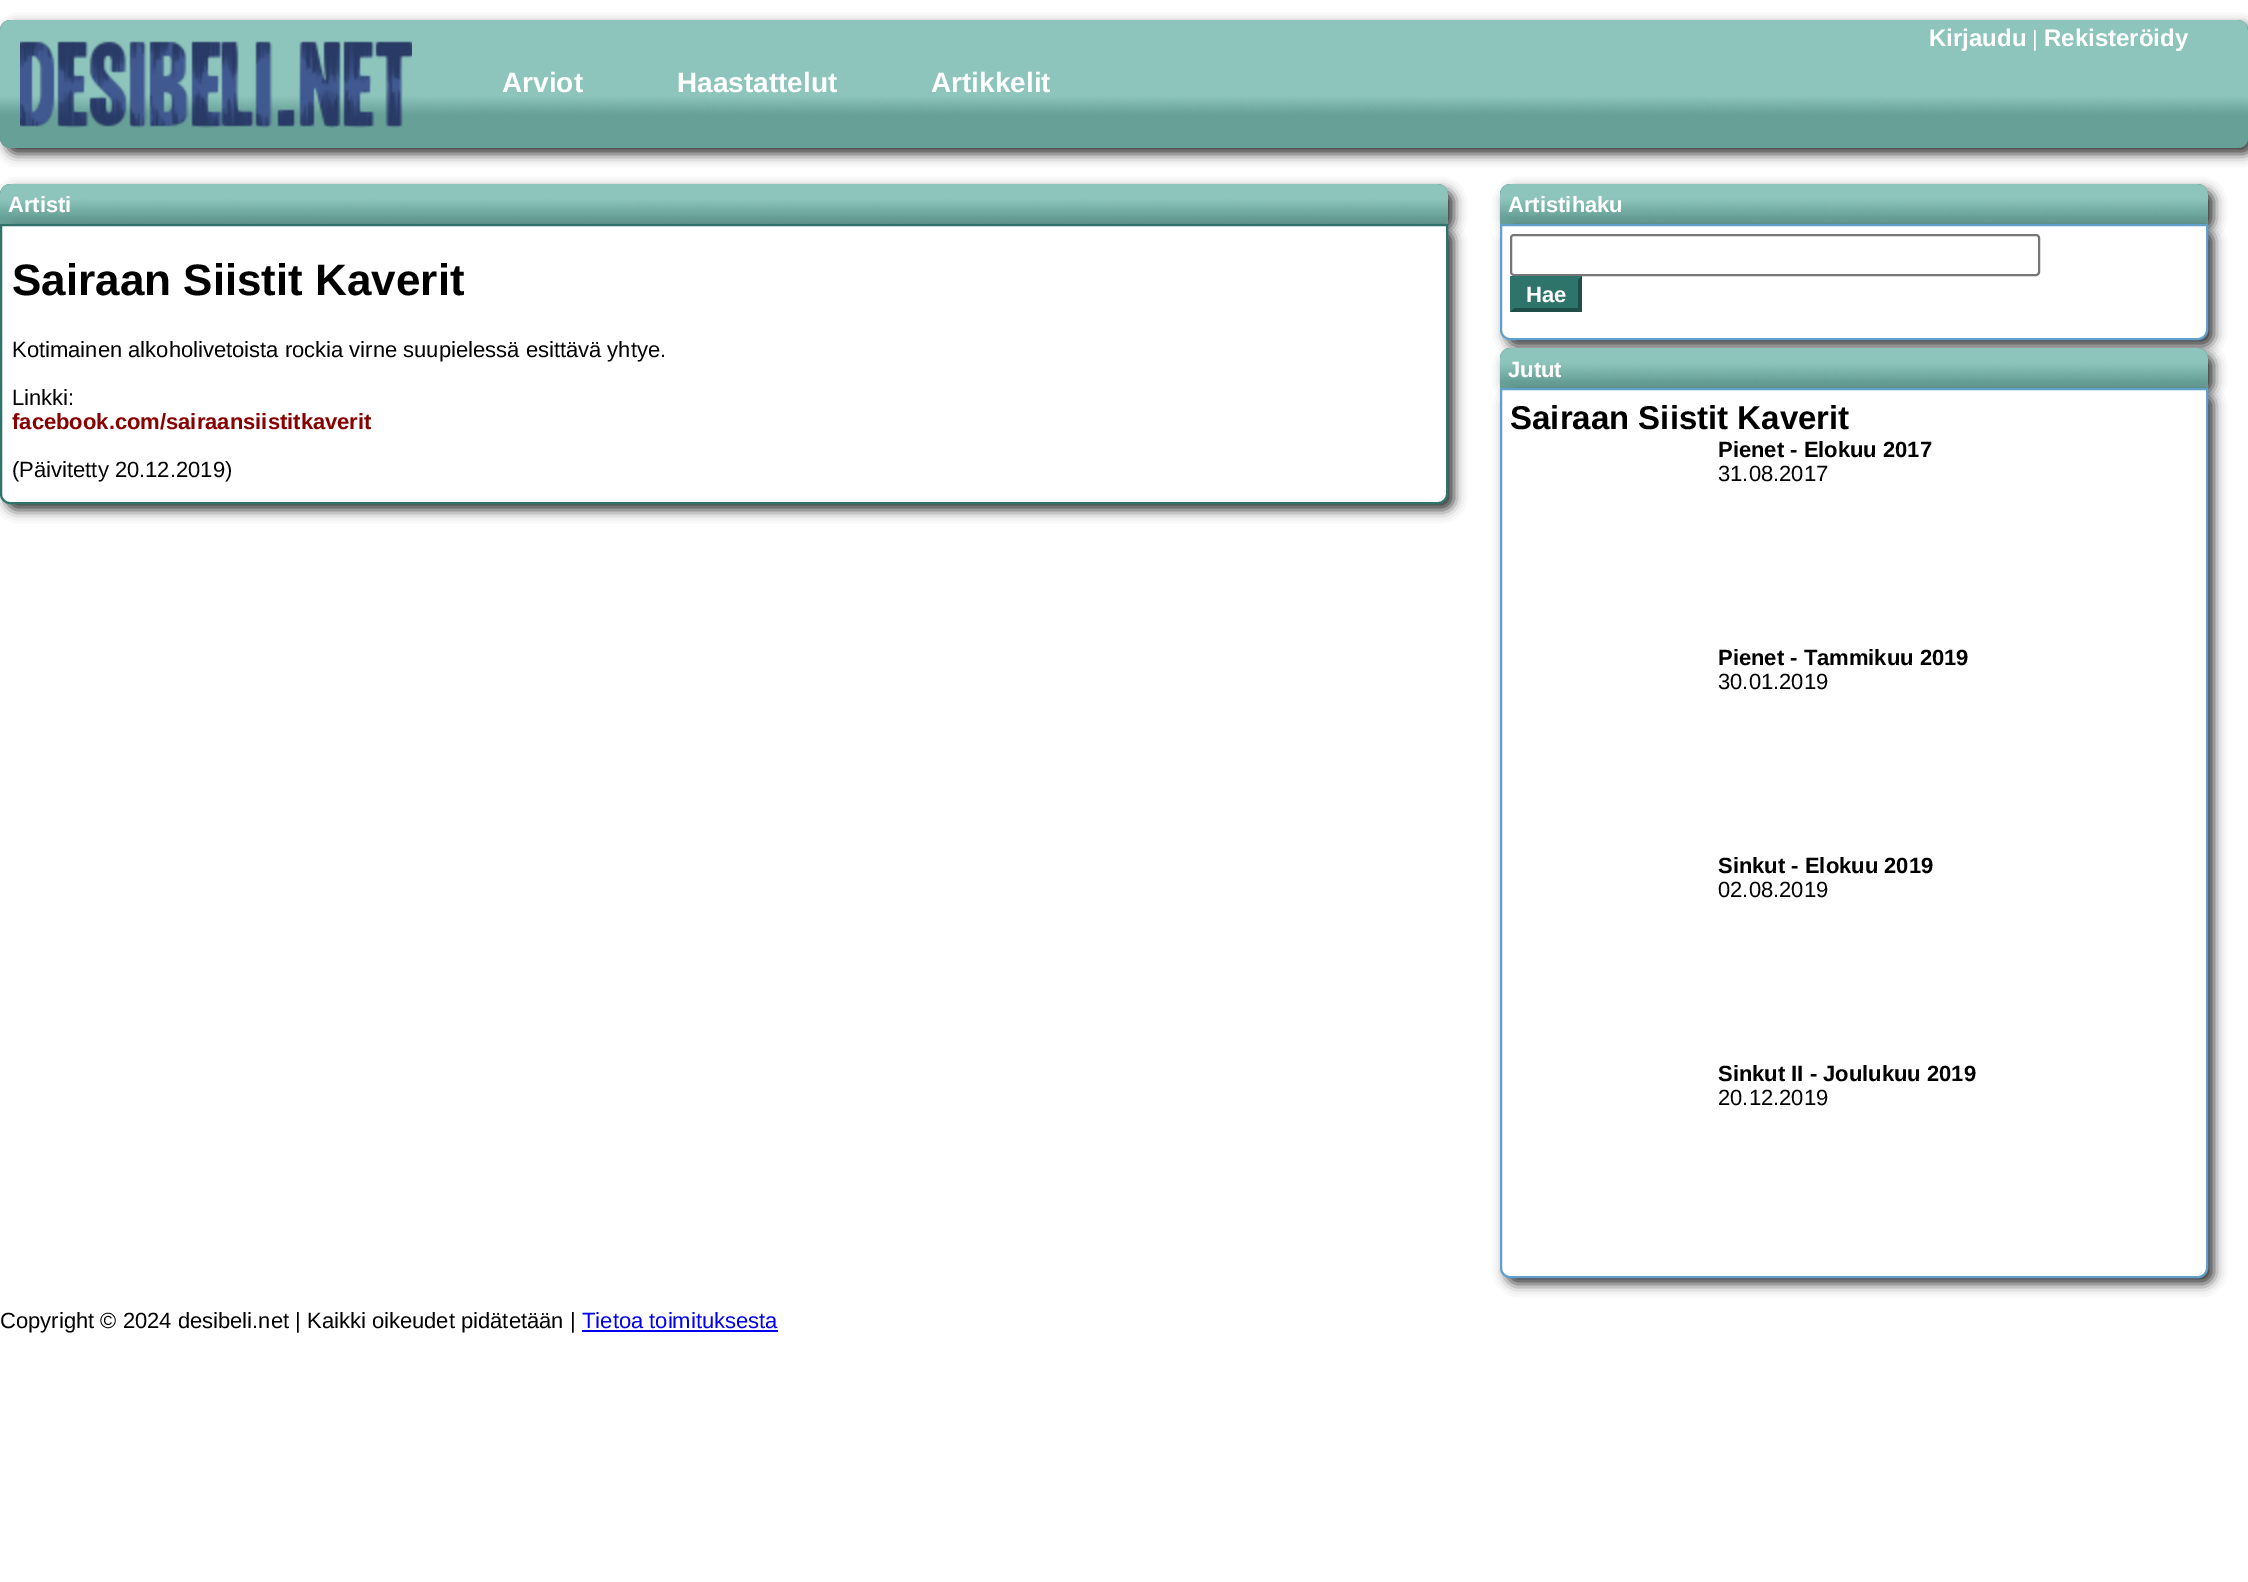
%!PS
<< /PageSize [2248 1582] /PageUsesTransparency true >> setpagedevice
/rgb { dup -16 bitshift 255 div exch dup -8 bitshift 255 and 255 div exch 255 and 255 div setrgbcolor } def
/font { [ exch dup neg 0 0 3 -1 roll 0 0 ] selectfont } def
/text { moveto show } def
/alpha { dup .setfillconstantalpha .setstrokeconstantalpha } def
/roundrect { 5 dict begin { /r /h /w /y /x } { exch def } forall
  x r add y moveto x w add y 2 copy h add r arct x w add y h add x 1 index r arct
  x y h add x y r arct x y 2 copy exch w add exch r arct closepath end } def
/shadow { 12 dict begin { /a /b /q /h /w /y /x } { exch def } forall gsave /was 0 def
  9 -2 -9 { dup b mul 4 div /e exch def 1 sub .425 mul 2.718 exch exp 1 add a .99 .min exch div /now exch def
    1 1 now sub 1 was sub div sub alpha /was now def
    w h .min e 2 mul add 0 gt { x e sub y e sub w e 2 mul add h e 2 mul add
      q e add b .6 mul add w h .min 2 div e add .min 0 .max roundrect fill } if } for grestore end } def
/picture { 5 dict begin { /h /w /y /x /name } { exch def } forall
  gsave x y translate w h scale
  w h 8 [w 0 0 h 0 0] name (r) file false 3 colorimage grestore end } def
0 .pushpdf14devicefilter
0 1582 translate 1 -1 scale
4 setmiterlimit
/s1 { /LiberationSans-Bold 28 font 16#FFFFFF rgb } def
/s2 { /LiberationSans-Bold 24 font 16#FFFFFF rgb } def
/s3 { /LiberationSans-Regular 22 font 16#FFFFFF rgb } def
/s4 { /LiberationSans-Bold 22 font 16#FFFFFF rgb } def
/s5 { /LiberationSans-Bold 44 font 16#000000 rgb } def
/s6 { /LiberationSans-Regular 22 font 16#000000 rgb } def
/s7 { /LiberationSans-Bold 22 font 16#880000 rgb } def
/s8 { /LiberationSans-Bold 33 font 16#000000 rgb } def
/s9 { /LiberationSans-Bold 22 font 16#000000 rgb } def
/s10 { /LiberationSans-Regular 22 font 16#0000EE rgb } def
16#FFFFFF rgb
0 0 2248 1582 rectfill
16#333333 rgb
6 26 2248 128 10 6 1 shadow
16#2E746A rgb
0 20 2248 128 10 roundrect fill
(pic1.raw) 0 20 2248 128 picture
(pic2.raw) 20 41 392 87 picture
s1
(Arviot) 502 92 text
(Haastattelut) 677 92 text
(Artikkelit) 931 92 text
s2
(Kirjaudu) 1929 46 text
s3
(|) 2032 46 text
s2
(Rekisteröidy) 2044 46 text
16#333333 rgb
6 190 1448 40 10 6 1 shadow
16#2E746A rgb
10 184 moveto 1438 184 lineto 1443.5 184 1448 188.5 1448 194 curveto 1448 224 lineto 0 224 lineto 0 194 lineto 0 188.5 4.5 184 10 184 curveto closepath fill
(pic3.raw) 0 184 1448 40 picture
s4
(Artisti) 8 212 text
16#333333 rgb
6 230 1448 280 10 6 1 shadow
16#FFFFFF rgb
1 225 moveto 1447 225 lineto 1447 494 lineto 1447 499 1443 503 1438 503 curveto 10 503 lineto 5 503 1 499 1 494 curveto closepath gsave fill grestore
16#2E746A rgb
2 setlinewidth
stroke
s5
(Sairaan Siistit Kaverit) 12 295 text
s6
(Kotimainen alkoholivetoista rockia virne suupielessä esittävä yhtye.) 12 357 text
(Linkki:) 12 405 text
s7
(facebook.com/sairaansiistitkaverit) 12 429 text
s6
(\(Päivitetty 20.12.2019\)) 12 477 text
16#333333 rgb
1506 190 708 40 10 6 1 shadow
16#2E746A rgb
1510 184 moveto 2198 184 lineto 2203.5 184 2208 188.5 2208 194 curveto 2208 224 lineto 1500 224 lineto 1500 194 lineto 1500 188.5 1504.5 184 1510 184 curveto closepath fill
(pic4.raw) 1500 184 708 40 picture
16#333333 rgb
1506 230 708 116 10 6 1 shadow
s4
(Artistihaku) 1508 212 text
1501 225 moveto 2207 225 lineto 2207 330 lineto 2207 335 2203 339 2198 339 curveto 1510 339 lineto 1505 339 1501 335 1501 330 curveto closepath gsave fill grestore
16#619FCD rgb
stroke
16#767676 rgb
1511 235 528 40 3 roundrect stroke
16#2E746A rgb
1510 276 72 36 rectfill
16#1F4D47 rgb
1582 276 moveto 1582 312 lineto 1578 308 lineto 1578 280 lineto closepath fill
1582 312 moveto 1510 312 lineto 1514 308 lineto 1578 308 lineto closepath fill
16#2E746A rgb
1510 312 moveto 1510 276 lineto 1514 280 lineto 1514 308 lineto closepath fill
s4
(Hae) 1526 302 text
16#333333 rgb
1506 354 708 40 10 6 1 shadow
16#2E746A rgb
1510 348 moveto 2198 348 lineto 2203.5 348 2208 352.5 2208 358 curveto 2208 388 lineto 1500 388 lineto 1500 358 lineto 1500 352.5 1504.5 348 1510 348 curveto closepath fill
(pic5.raw) 1500 348 708 40 picture
16#333333 rgb
1506 394 708 890 10 6 1 shadow
s4
(Jutut) 1508 377 text
1501 389 moveto 2207 389 lineto 2207 1268 lineto 2207 1273 2203 1277 2198 1277 curveto 1510 1277 lineto 1505 1277 1501 1273 1501 1268 curveto closepath gsave fill grestore
16#619FCD rgb
stroke
s8
(Sairaan Siistit Kaverit) 1510 429 text
s9
(Pienet - Elokuu 2017) 1718 457 text
s6
(31.08.2017) 1718 481 text
s9
(Pienet - Tammikuu 2019) 1718 665 text
s6
(30.01.2019) 1718 689 text
s9
(Sinkut - Elokuu 2019) 1718 873 text
s6
(02.08.2019) 1718 897 text
s9
(Sinkut II - Joulukuu 2019) 1718 1081 text
s6
(20.12.2019) 1718 1105 text
(Copyright © 2024 desibeli.net | Kaikki oikeudet pidätetään |) 0 1328 text
s10
(Tietoa toimituksesta) 582 1328 text
582 1330 196 2 rectfill
.poppdf14devicefilter showpage
